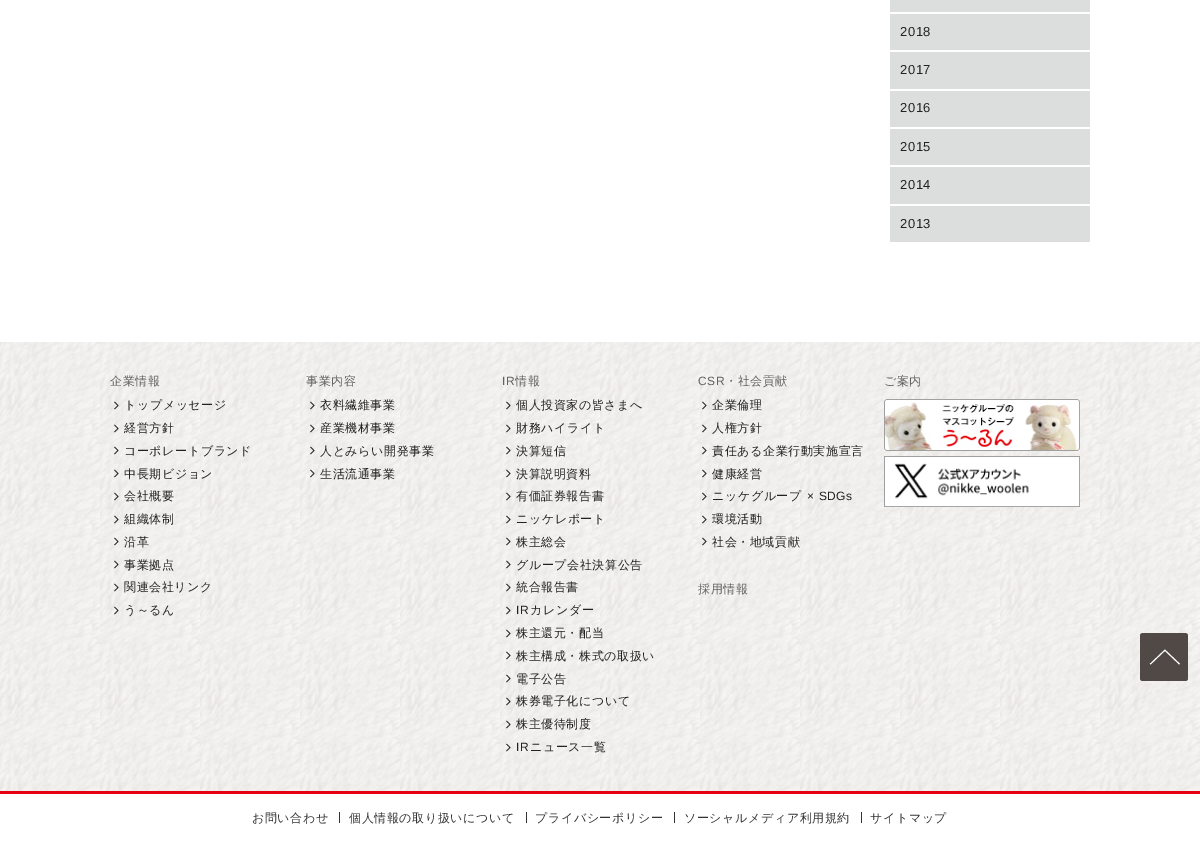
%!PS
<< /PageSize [1200 853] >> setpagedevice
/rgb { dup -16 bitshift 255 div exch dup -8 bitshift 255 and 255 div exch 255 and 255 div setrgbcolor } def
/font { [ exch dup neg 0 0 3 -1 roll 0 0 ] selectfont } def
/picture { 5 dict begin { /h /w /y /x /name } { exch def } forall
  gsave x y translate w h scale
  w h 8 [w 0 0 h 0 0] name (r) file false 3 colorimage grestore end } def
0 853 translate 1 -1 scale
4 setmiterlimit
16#FFFFFF rgb
0 0 1200 853 rectfill
16#DCDDDD rgb
890 0 200 12 rectfill
890 14 200 36 rectfill
/LiberationSans-Regular 13 font
16#222222 rgb
900 36 moveto 0.6 0 (2018) ashow
16#DCDDDD rgb
890 52 200 37 rectfill
16#222222 rgb
900 74 moveto 0.6 0 (2017) ashow
16#DCDDDD rgb
890 91 200 36 rectfill
16#222222 rgb
900 112 moveto 0.6 0 (2016) ashow
16#DCDDDD rgb
890 129 200 36 rectfill
16#222222 rgb
900 151 moveto 0.6 0 (2015) ashow
16#DCDDDD rgb
890 167 200 37 rectfill
16#222222 rgb
900 189 moveto 0.6 0 (2014) ashow
16#DCDDDD rgb
890 206 200 36 rectfill
16#222222 rgb
900 228 moveto 0.6 0 (2013) ashow
(pic1.raw) 0 342 1200 449 picture
16#E60010 rgb
0 791 1200 3 rectfill
/WenQuanYiZenHei-Medium 12 font
16#626262 rgb
110 385 moveto 0.6 0 (企業情報) ashow
(pic2.raw) 114 401 5 9 picture
16#222222 rgb
124 409 moveto 0.6 0 (トップメッセージ) ashow
(pic3.raw) 114 424 5 9 picture
124 432 moveto 0.6 0 (経営方針) ashow
(pic4.raw) 114 446 5 9 picture
124 455 moveto 0.6 0 (コーポレートブランド) ashow
(pic5.raw) 114 469 5 9 picture
124 478 moveto 0.6 0 (中長期ビジョン) ashow
(pic6.raw) 114 492 5 9 picture
124 500 moveto 0.6 0 (会社概要) ashow
(pic7.raw) 114 515 5 9 picture
124 523 moveto 0.6 0 (組織体制) ashow
(pic8.raw) 114 537 5 9 picture
124 546 moveto 0.6 0 (沿革) ashow
(pic9.raw) 114 560 5 9 picture
124 569 moveto 0.6 0 (事業拠点) ashow
(pic10.raw) 114 583 5 9 picture
124 591 moveto 0.6 0 (関連会社リンク) ashow
(pic11.raw) 114 606 5 9 picture
124 614 moveto 0.6 0 (う～るん) ashow
16#626262 rgb
306 385 moveto 0.6 0 (事業内容) ashow
(pic12.raw) 310 401 5 9 picture
16#222222 rgb
320 409 moveto 0.6 0 (衣料繊維事業) ashow
(pic13.raw) 310 424 5 9 picture
320 432 moveto 0.6 0 (産業機材事業) ashow
(pic14.raw) 310 446 5 9 picture
320 455 moveto 0.6 0 (人とみらい開発事業) ashow
(pic15.raw) 310 469 5 9 picture
320 478 moveto 0.6 0 (生活流通事業) ashow
/LiberationSans-Regular 12 font
16#626262 rgb
502 385 moveto 0.6 0 (IR) ashow
/WenQuanYiZenHei-Medium 12 font
515 385 moveto 0.6 0 (情報) ashow
(pic16.raw) 506 401 5 9 picture
16#222222 rgb
516 409 moveto 0.6 0 (個人投資家の皆さまへ) ashow
(pic17.raw) 506 424 5 9 picture
516 432 moveto 0.6 0 (財務ハイライト) ashow
(pic18.raw) 506 446 5 9 picture
516 455 moveto 0.6 0 (決算短信) ashow
(pic19.raw) 506 469 5 9 picture
516 478 moveto 0.6 0 (決算説明資料) ashow
(pic20.raw) 506 492 5 9 picture
516 500 moveto 0.6 0 (有価証券報告書) ashow
(pic21.raw) 506 515 5 9 picture
516 523 moveto 0.6 0 (ニッケレポート) ashow
(pic22.raw) 506 537 5 9 picture
516 546 moveto 0.6 0 (株主総会) ashow
(pic23.raw) 506 560 5 9 picture
516 569 moveto 0.6 0 (グループ会社決算公告) ashow
(pic24.raw) 506 583 5 9 picture
516 591 moveto 0.6 0 (統合報告書) ashow
(pic25.raw) 506 606 5 9 picture
/LiberationSans-Regular 12 font
516 614 moveto 0.6 0 (IR) ashow
/WenQuanYiZenHei-Medium 12 font
530 614 moveto 0.6 0 (カレンダー) ashow
(pic26.raw) 506 629 5 9 picture
516 637 moveto 0.6 0 (株主還元・配当) ashow
(pic27.raw) 506 651 5 9 picture
516 660 moveto 0.6 0 (株主構成・株式の取扱い) ashow
(pic28.raw) 506 674 5 9 picture
516 683 moveto 0.6 0 (電子公告) ashow
(pic29.raw) 506 697 5 9 picture
516 705 moveto 0.6 0 (株券電子化について) ashow
(pic30.raw) 506 720 5 9 picture
516 728 moveto 0.6 0 (株主優待制度) ashow
(pic31.raw) 506 743 5 9 picture
/LiberationSans-Regular 12 font
516 751 moveto 0.6 0 (IR) ashow
/WenQuanYiZenHei-Medium 12 font
530 751 moveto 0.6 0 (ニュース一覧) ashow
/LiberationSans-Regular 12 font
16#626262 rgb
698 385 moveto 0.6 0 (CSR) ashow
/WenQuanYiZenHei-Medium 12 font
725 385 moveto 0.6 0 (・社会貢献) ashow
(pic32.raw) 702 401 5 9 picture
16#222222 rgb
712 409 moveto 0.6 0 (企業倫理) ashow
(pic33.raw) 702 424 5 9 picture
712 432 moveto 0.6 0 (人権方針) ashow
(pic34.raw) 702 446 5 9 picture
712 455 moveto 0.6 0 (責任ある企業行動実施宣言) ashow
(pic35.raw) 702 469 5 9 picture
712 478 moveto 0.6 0 (健康経営) ashow
(pic36.raw) 702 492 5 9 picture
712 500 moveto 0.6 0 (ニッケグループ) ashow
/LiberationSans-Regular 12 font
807 500 moveto 0.6 0 (× SDGs) ashow
(pic37.raw) 702 515 5 9 picture
/WenQuanYiZenHei-Medium 12 font
712 523 moveto 0.6 0 (環境活動) ashow
(pic38.raw) 702 537 5 9 picture
712 546 moveto 0.6 0 (社会・地域貢献) ashow
16#626262 rgb
698 593 moveto 0.6 0 (採用情報) ashow
884 385 moveto 0.6 0 (ご案内) ashow
(pic39.raw) 884 399 196 52 picture
(pic40.raw) 884 456 196 51 picture
16#333333 rgb
252 822 moveto 0.6 0 (お問い合わせ) ashow
339 812 1 11 rectfill
349 822 moveto 0.6 0 (個人情報の取り扱いについて) ashow
526 812 1 11 rectfill
535 822 moveto 0.6 0 (プライバシーポリシー) ashow
674 812 1 11 rectfill
684 822 moveto 0.6 0 (ソーシャルメディア利用規約) ashow
861 812 1 11 rectfill
870 822 moveto 0.6 0 (サイトマップ) ashow
(pic41.raw) 1140 633 48 48 picture
showpage
